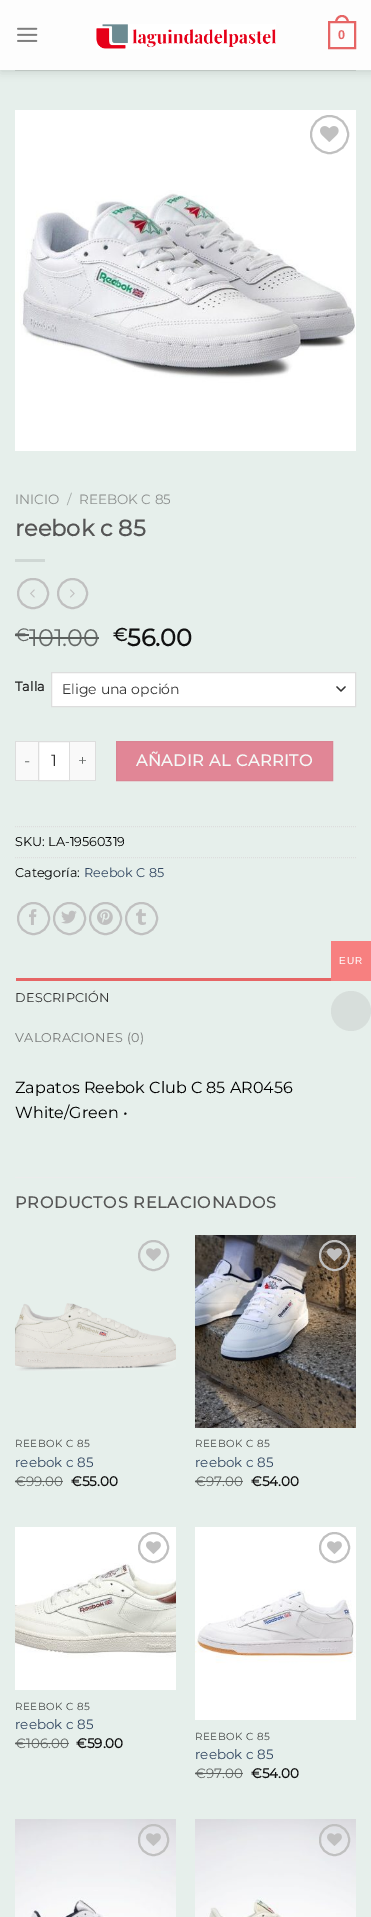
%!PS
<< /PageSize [371 1917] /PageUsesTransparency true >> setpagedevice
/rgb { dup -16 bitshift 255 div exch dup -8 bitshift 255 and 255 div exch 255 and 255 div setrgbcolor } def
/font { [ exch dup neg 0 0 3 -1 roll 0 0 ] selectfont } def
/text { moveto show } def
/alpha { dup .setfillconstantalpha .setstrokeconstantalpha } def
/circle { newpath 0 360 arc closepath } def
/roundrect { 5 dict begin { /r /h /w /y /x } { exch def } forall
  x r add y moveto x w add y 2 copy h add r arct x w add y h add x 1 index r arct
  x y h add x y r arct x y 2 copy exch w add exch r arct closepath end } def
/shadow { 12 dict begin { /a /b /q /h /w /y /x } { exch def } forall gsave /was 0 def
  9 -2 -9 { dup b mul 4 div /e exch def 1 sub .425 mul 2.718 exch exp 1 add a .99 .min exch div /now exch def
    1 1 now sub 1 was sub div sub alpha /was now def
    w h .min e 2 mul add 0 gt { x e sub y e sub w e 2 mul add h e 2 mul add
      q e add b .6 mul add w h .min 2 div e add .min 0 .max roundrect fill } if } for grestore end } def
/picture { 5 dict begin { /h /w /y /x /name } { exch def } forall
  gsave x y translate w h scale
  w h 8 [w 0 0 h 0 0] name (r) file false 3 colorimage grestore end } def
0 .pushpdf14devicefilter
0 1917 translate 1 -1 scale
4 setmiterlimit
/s1 { /LiberationSans-Bold 12.75 font 16#E66565 rgb } def
/s2 { /Montserrat-Regular 13.5 font 16#8C8F8E rgb } def
/s3 { /Montserrat-Regular 13.5 font 16#A1A7A5 rgb } def
/s4 { /Montserrat-Bold 22.5 font 16#555555 rgb } def
/s5 { /Montserrat-Regular 18 font 16#666A68 rgb } def
/s6 { /Montserrat-Regular 24 font 16#666A68 rgb } def
/s7 { /Montserrat-Bold 18 font 16#111111 rgb } def
/s8 { /Montserrat-Bold 24 font 16#111111 rgb } def
/s9 { /Montserrat-Bold 13 font 16#222222 rgb } def
/s10 { /Montserrat-Regular 14 font 16#333333 rgb } def
/s11 { /Montserrat-Regular 16 font 16#666A68 rgb } def
/s12 { /Montserrat-Regular 16 font 16#333333 rgb } def
/s13 { /Montserrat-Regular 12.75 font 16#000000 rgb } def
/s14 { /Montserrat-Regular 12.75 font 16#334862 rgb } def
/s15 { /Montserrat-Regular 16 font 16#000000 rgb } def
/s16 { /Montserrat-Regular 13.5 font 16#334862 rgb } def
/s17 { /Montserrat-Regular 13.5 font 16#666A68 rgb } def
/s18 { /Montserrat-Bold 13.5 font 16#111111 rgb } def
16#E6EFEB rgb
0 0 371 1917 rectfill
16#000000 rgb
1 1 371 70 0 5 0.15 shadow
16#FDFDFD rgb
0 0 371 70 rectfill
(pic1.raw) 17 27 21 15 picture
(pic2.raw) 96 24 180 25 picture
16#E66565 rgb
2 setlinewidth
329 22 26 26 rectstroke
342 15 moveto 346.5 15 349 19 349 23 curveto 335 23 lineto 335 19 337.5 15 342 15 curveto closepath 342 17 moveto 345.5 17 347 20 347 23 curveto 337 23 lineto 337 20 338.5 17 342 17 curveto closepath eofill
s1
(0) 338 39 text
16#BEC6C2 rgb
15 70 341 1 rectfill
(pic3.raw) 15 110 341 341 picture
16#C0C0C0 rgb
329.5 134.5 18.5 circle stroke
(pic4.raw) 320 126 19 16 picture
s2
(INICIO) 15 504 text
s3
(/) 67 504 text
s2
(REEBOK C 85) 79 504 text
s4
(reebok c 85) 15 536 text
16#CFD7D4 rgb
15 559 30 3 rectfill
16#C0C0C0 rgb
18 579 30 29 14.5 roundrect stroke
(pic5.raw) 30 589 5 9 picture
72.5 593.5 14.5 circle stroke
(pic6.raw) 70 589 5 9 picture
s5
(€) 15 641 text
16#5C605E rgb
15 634 14 2 rectfill
s6
(101.00) 29 646 text
16#5C605E rgb
29 637 70 2 rectfill
s7
(€) 113 641 text
s8
(56.00) 127 646 text
s9
(Talla) 15 691 text
16#FFFFFF rgb
52 673 303 33 rectfill
16#333333 rgb
1.3 setlinewidth
1 setlinecap
1 setlinejoin
337 687 moveto 341 691 lineto 345 687 lineto stroke
16#DDDDDD rgb
1 setlinewidth
0 setlinecap
0 setlinejoin
51.5 672.5 304 34 rectstroke
s10
(Elige una opción) 62 694 text
16#F9F9F9 rgb
16 742 22 38 rectfill
16#DDDDDD rgb
15 741 23 1 rectfill
15 780 23 1 rectfill
15 741 1 40 rectfill
s11
(-) 24 766 text
16#FFFFFF rgb
38.5 741.5 moveto 69.5 741.5 lineto 69.5 780.5 lineto 38.5 780.5 lineto closepath gsave fill grestore
16#DDDDDD rgb
stroke
s12
(1) 51 766 text
16#F9F9F9 rgb
70 742 25 38 rectfill
16#DDDDDD rgb
70 741 26 1 rectfill
95 741 1 40 rectfill
70 780 26 1 rectfill
s11
(+) 78 766 text
16#E18696 rgb
116.5 741.5 moveto 332.5 741.5 lineto 332.5 780.5 lineto 116.5 780.5 lineto closepath gsave fill grestore
16#DA8493 rgb
stroke
/Montserrat-Bold 16 font
16#F5F9F7 rgb
136 766 moveto 0.5 0 (AÑADIR AL CARRITO) ashow
16#DDDDDD rgb
[1 1] 0 setdash
15 826.5 moveto 356 826.5 lineto stroke
s13
(SKU: LA-19560319) 15 846 text
16#DDDDDD rgb
15 857.5 moveto 356 857.5 lineto stroke
s13
(Categoría:) 15 877 text
s14
(Reebok C 85) 84 877 text
16#C0C0C0 rgb
2 setlinewidth
[] 0 setdash
33.5 918.5 15.5 circle stroke
(pic7.raw) 29 909 8 16 picture
69.5 918.5 15.5 circle stroke
(pic8.raw) 61 910 16 14 picture
105.5 918.5 15.5 circle stroke
(pic9.raw) 97 909 16 16 picture
141.5 918.5 15.5 circle stroke
(pic10.raw) 136 909 10 16 picture
16#ECECEC rgb
15 978 1 1 rectfill
16#E66565 rgb
16 978 315 3 rectfill
16#333333 rgb
15 1002 moveto 0.25 0 (DESCRIPCIÓN) ashow
16#797B7A rgb
15 1042 moveto 0.25 0 (VALORACIONES \(0\)) ashow
s15
(Zapatos Reebok Club C 85 AR0456) 15 1093 text
(White/Green •) 15 1118 text
16#ECECEC rgb
15 1177 341 1 rectfill
/Montserrat-Bold 16 font
16#555555 rgb
15 1208 moveto 0.8 0 (PRODUCTOS RELACIONADOS) ashow
16#C0C0C0 rgb
153.5 1255.5 14.5 circle stroke
(pic11.raw) 146 1248 15 13 picture
(pic12.raw) 15 1303 161 68 picture
/Montserrat-Regular 10.25 font
16#454847 rgb
15 1447 moveto 0.5 0 (REEBOK C 85) ashow
s16
(reebok c 85) 15 1467 text
s17
(€99.00) 15 1486 text
16#5C605E rgb
15 1481 48 1 rectfill
s18
(€55.00) 71 1486 text
(pic13.raw) 195 1235 161 193 picture
16#C0C0C0 rgb
334.5 1255.5 14.5 circle stroke
(pic14.raw) 327 1248 15 13 picture
/Montserrat-Regular 10.25 font
16#454847 rgb
195 1447 moveto 0.5 0 (REEBOK C 85) ashow
s16
(reebok c 85) 195 1467 text
s17
(€97.00) 195 1486 text
16#5C605E rgb
195 1481 48 1 rectfill
s18
(€54.00) 251 1486 text
(pic15.raw) 15 1527 161 163 picture
16#C0C0C0 rgb
153.5 1547.5 14.5 circle stroke
(pic16.raw) 146 1541 15 13 picture
/Montserrat-Regular 10.25 font
16#454847 rgb
15 1710 moveto 0.5 0 (REEBOK C 85) ashow
s16
(reebok c 85) 15 1729 text
s17
(€) 15 1748 text
16#5C605E rgb
15 1743 11 1 rectfill
s17
(106.00) 26 1748 text
16#5C605E rgb
26 1743 43 1 rectfill
s18
(€59.00) 76 1748 text
(pic17.raw) 195 1527 161 193 picture
16#C0C0C0 rgb
334.5 1547.5 14.5 circle stroke
(pic16.raw) 327 1541 15 13 picture
/Montserrat-Regular 10.25 font
16#454847 rgb
195 1740 moveto 0.5 0 (REEBOK C 85) ashow
s16
(reebok c 85) 195 1759 text
s17
(€97.00) 195 1778 text
16#5C605E rgb
195 1773 48 1 rectfill
s18
(€54.00) 251 1778 text
(pic18.raw) 15 1819 161 98 picture
16#C0C0C0 rgb
139 1825 29 30 14.5 roundrect stroke
(pic19.raw) 146 1833 15 13 picture
(pic20.raw) 195 1819 161 98 picture
320 1825 29 30 14.5 roundrect stroke
(pic21.raw) 327 1833 15 13 picture
16#F78080 rgb
331 941 40 40 rectfill
/LiberationSans-Regular 10 font
16#FFFFFF rgb
339 964 moveto 1 0 (EUR) ashow
16#D7DEDB rgb
351 1011 20 circle fill
.poppdf14devicefilter showpage
